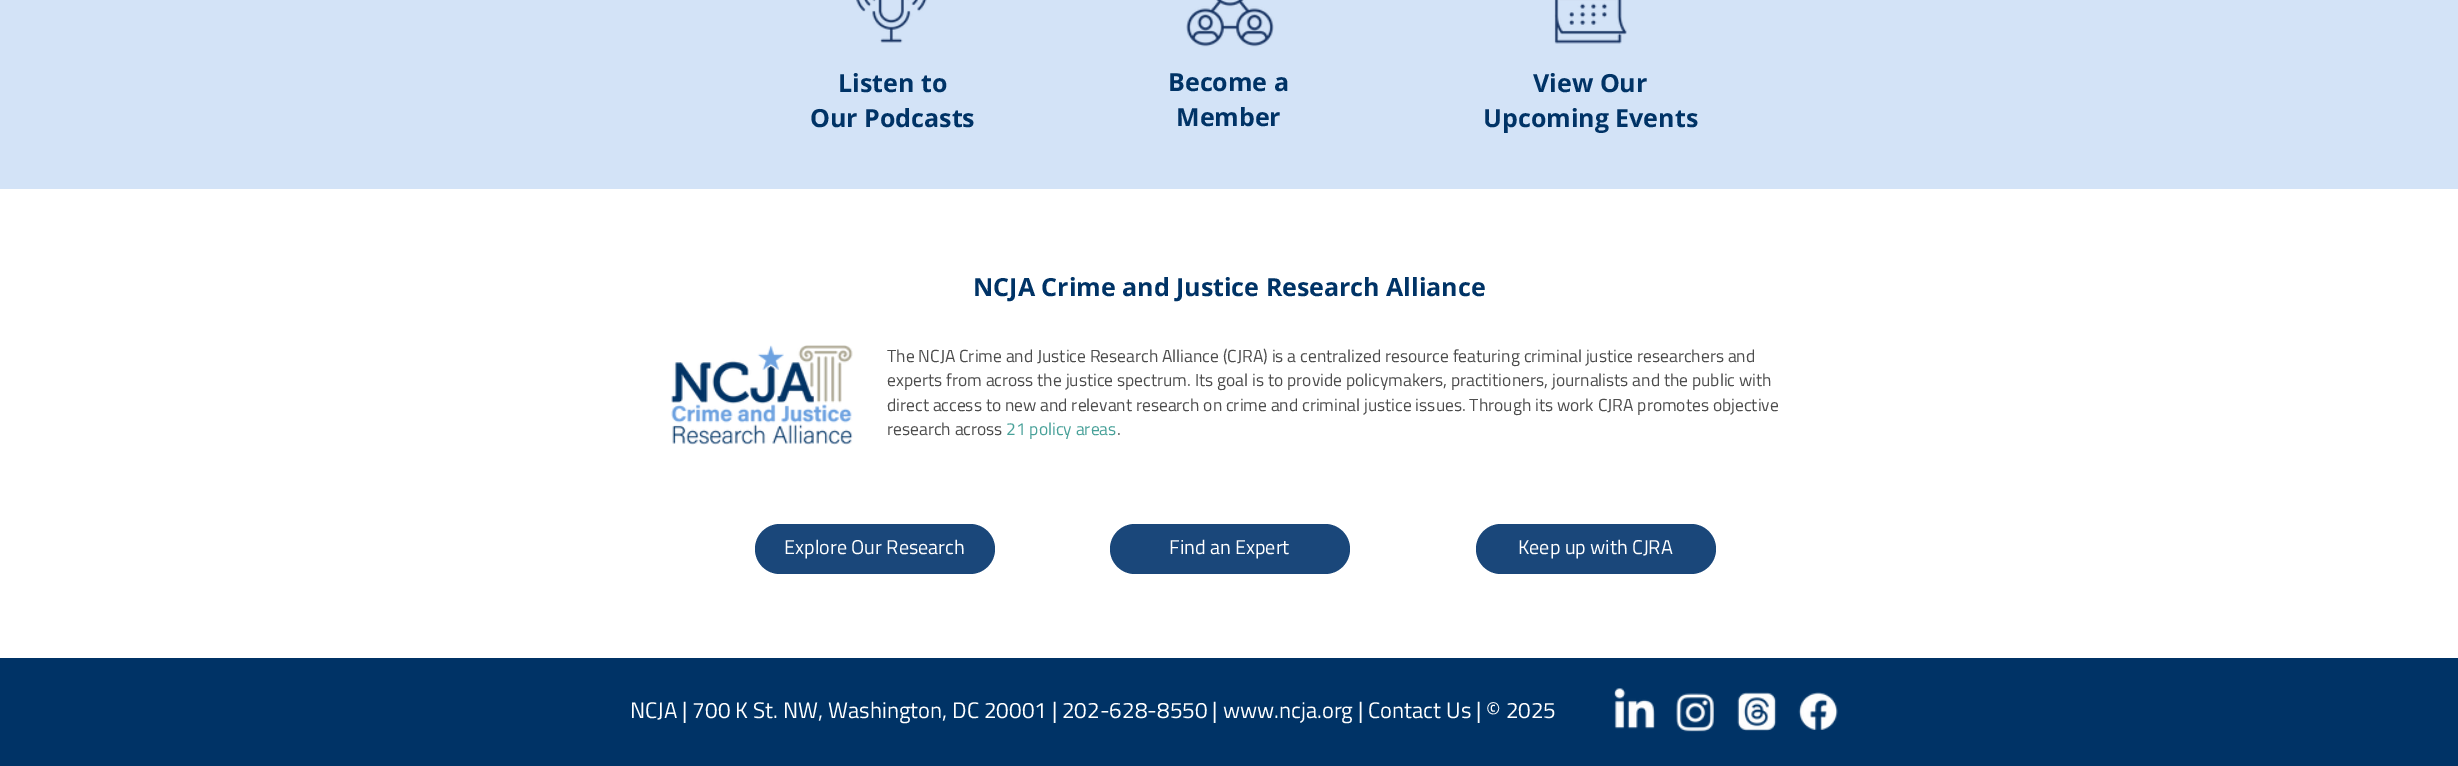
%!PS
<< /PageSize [2458 766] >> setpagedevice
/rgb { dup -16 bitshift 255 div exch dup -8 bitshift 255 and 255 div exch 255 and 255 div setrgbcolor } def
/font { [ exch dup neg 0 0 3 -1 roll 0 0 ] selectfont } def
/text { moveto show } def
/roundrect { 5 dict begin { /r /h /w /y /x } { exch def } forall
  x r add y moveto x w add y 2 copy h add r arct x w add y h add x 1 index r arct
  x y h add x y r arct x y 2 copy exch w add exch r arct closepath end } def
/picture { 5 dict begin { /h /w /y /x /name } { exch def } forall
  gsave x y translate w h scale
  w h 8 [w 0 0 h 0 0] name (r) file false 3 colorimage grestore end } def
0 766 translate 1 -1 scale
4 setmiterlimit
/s1 { /OpenSans-Bold 25 font 16#003366 rgb } def
/s2 { /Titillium-Regular 17.5 font 16#4D4D4D rgb } def
/s3 { /Titillium-Regular 17.5 font 16#48A199 rgb } def
/s4 { /Titillium-Regular 20 font 16#FFFFFF rgb } def
/s5 { /Titillium-Regular 22.5 font 16#FFFFFF rgb } def
16#FFFFFF rgb
0 0 2458 766 rectfill
16#D3E3F7 rgb
0 0 2458 189 rectfill
(pic1.raw) 856 0 71 43 picture
s1
(Listen to) 838 92 text
(Our Podcasts) 810 127 text
(pic2.raw) 1186 0 88 47 picture
(Become a) 1168 91 text
(Member) 1176 126 text
(pic3.raw) 1554 0 73 44 picture
(View Our) 1533 92 text
(Upcoming Events) 1483 127 text
(NCJA Crime and Justice Research Alliance) 973 296 text
(pic4.raw) 671 345 182 100 picture
s2
(The NCJA Crime and Justice Research Alliance \(CJRA\) is a centralized resource featuring criminal justice researchers and) 887 362 text
(experts from across the justice spectrum. Its goal is to provide policymakers, practitioners, journalists and the public with) 887 386 text
(direct access to new and relevant research on crime and criminal justice issues. Through its work CJRA promotes objective) 887 411 text
(research across) 887 435 text
s3
(21 policy areas) 1006 435 text
s2
(.) 1117 435 text
16#1A477A rgb
755 524 240 50 25 roundrect fill
s4
(Explore Our Research) 784 554 text
16#1A477A rgb
1110 524 240 50 25 roundrect fill
s4
(Find an Expert) 1169 554 text
16#1A477A rgb
1476 524 240 50 25 roundrect fill
s4
(Keep up with CJRA) 1518 554 text
16#003366 rgb
0 658 2458 108 rectfill
s5
(NCJA | 700 K St. NW, Washington, DC 20001 | 202-628-8550 | www.ncja.org | Contact Us | © 2025) 630 718 text
(pic5.raw) 1614 688 41 41 picture
(pic6.raw) 1676 693 38 39 picture
(pic7.raw) 1737 692 40 39 picture
(pic8.raw) 1798 692 40 38 picture
showpage
